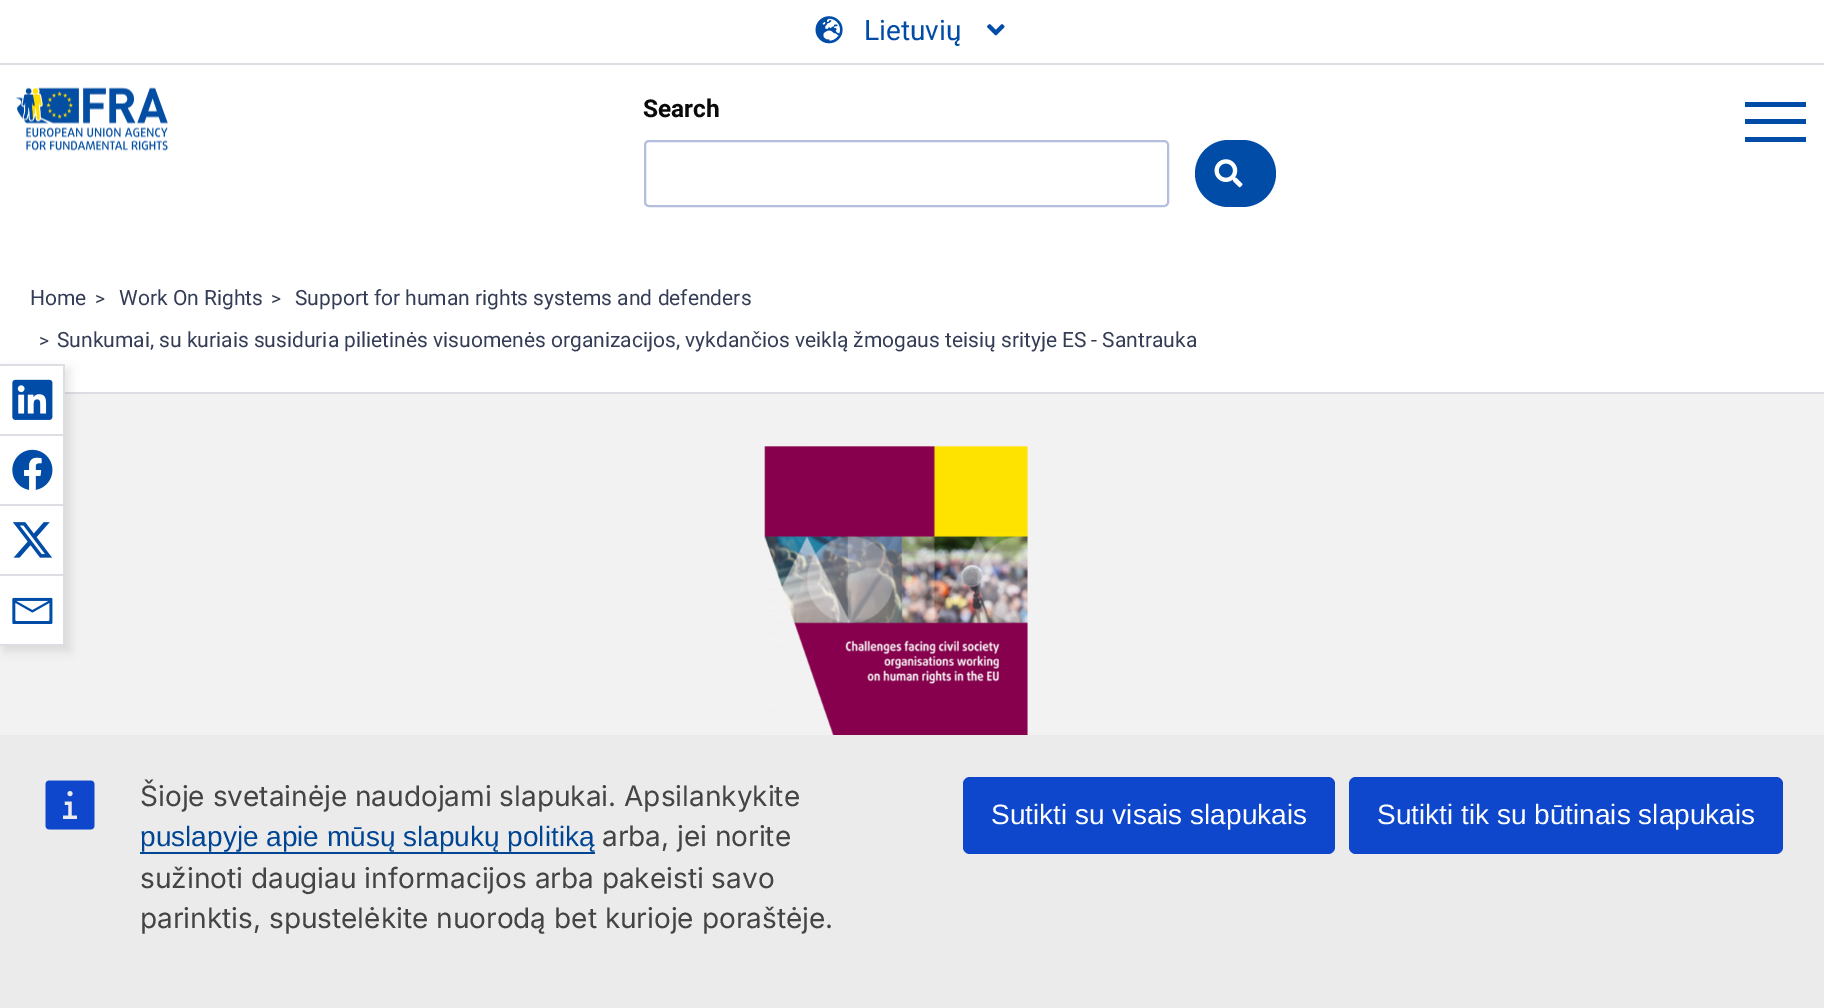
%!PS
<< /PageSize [1824 1008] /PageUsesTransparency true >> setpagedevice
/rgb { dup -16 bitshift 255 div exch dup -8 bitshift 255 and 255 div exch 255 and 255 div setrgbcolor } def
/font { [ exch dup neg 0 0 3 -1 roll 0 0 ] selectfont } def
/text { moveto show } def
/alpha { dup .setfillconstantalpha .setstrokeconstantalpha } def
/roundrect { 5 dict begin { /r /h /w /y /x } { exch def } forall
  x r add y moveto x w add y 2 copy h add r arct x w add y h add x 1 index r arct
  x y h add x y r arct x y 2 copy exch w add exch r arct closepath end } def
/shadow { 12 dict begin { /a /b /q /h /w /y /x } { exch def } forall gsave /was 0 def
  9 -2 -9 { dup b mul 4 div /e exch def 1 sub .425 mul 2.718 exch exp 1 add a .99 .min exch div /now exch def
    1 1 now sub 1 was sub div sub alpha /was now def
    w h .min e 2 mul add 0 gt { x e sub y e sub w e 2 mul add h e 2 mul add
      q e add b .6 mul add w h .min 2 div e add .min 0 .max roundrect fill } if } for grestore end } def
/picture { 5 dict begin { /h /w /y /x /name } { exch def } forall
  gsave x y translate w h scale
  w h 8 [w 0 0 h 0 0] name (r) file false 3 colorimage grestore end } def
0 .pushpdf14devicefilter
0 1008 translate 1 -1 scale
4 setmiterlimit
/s1 { /Roboto-Regular 28 font 16#004CA6 rgb } def
/s2 { /Roboto-Bold 24.5 font 16#0A0A0A rgb } def
/s3 { /Roboto-Regular 21 font 16#343D55 rgb } def
/s4 { /Roboto-Regular 19 font 16#343D55 rgb } def
/s5 { /Inter-Regular 28 font 16#444444 rgb } def
/s6 { /LiberationSans-Regular 28 font 16#004494 rgb } def
/s7 { /LiberationSans-Regular 28 font 16#FFFFFF rgb } def
16#FFFFFF rgb
0 0 1824 1008 rectfill
16#DCDEE3 rgb
0 63 1824 2 rectfill
(pic1.raw) 815 16 28 28 picture
s1
(Lietuvių) 864 40 text
(pic2.raw) 987 24 18 12 picture
(pic3.raw) 15 87 153 64 picture
s2
(Search) 643 117 text
16#B3BFDD rgb
2 setlinewidth
645 141 523 65 4 roundrect stroke
16#004CA6 rgb
1195 140 81 67 33.5 roundrect fill
(pic4.raw) 1214 159 29 29 picture
1745 137 61 5 rectfill
1745 119 61 5 rectfill
1745 102 61 5 rectfill
16#DCDEE3 rgb
65 392 1759 2 rectfill
s3
(Home) 30 305 text
s4
(>) 95 305 text
s3
(Work On Rights) 119 305 text
s4
(>) 271 305 text
s3
(Support for human rights systems and defenders) 295 305 text
s4
(>) 39 347 text
s3
(Sunkumai, su kuriais susiduria pilietinės visuomenės organizacijos, vykdančios veiklą žmogaus teisių srityje ES - Santrauka) 57 347 text
16#F2F2F2 rgb
0 394 1824 341 rectfill
16#000000 rgb
4 369 66 282 0 5 0.1 shadow
16#FFFFFF rgb
0 366 63 278 rectfill
16#DCDEE3 rgb
63 364 2 282 rectfill
0 644 65 2 rectfill
0 364 63 2 rectfill
(pic5.raw) 12 379 41 41 picture
0 434 63 2 rectfill
(pic6.raw) 12 449 41 41 picture
0 504 63 2 rectfill
(pic7.raw) 12 522 40 36 picture
0 574 63 2 rectfill
(pic8.raw) 12 597 41 27 picture
(pic9.raw) 764 446 264 289 picture
16#EBEBEB rgb
0 735 1824 273 rectfill
(pic10.raw) 45 780 50 50 picture
s5
(Šioje svetainėje naudojami slapukai. Apsilankykite) 140 806 text
s6
(puslapyje apie mūsų slapukų politiką) 140 846 text
140 852 455 2 rectfill
s5
(arba, jei norite) 602 846 text
(sužinoti daugiau informacijos arba pakeisti savo) 140 888 text
(parinktis, spustelėkite nuorodą bet kurioje poraštėje.) 140 928 text
16#0E47CB rgb
963 777 372 77 7 roundrect fill
s7
(Sutikti su visais slapukais) 991 824 text
16#0E47CB rgb
1349 777 434 77 7 roundrect fill
s7
(Sutikti tik su būtinais slapukais) 1377 824 text
.poppdf14devicefilter showpage
